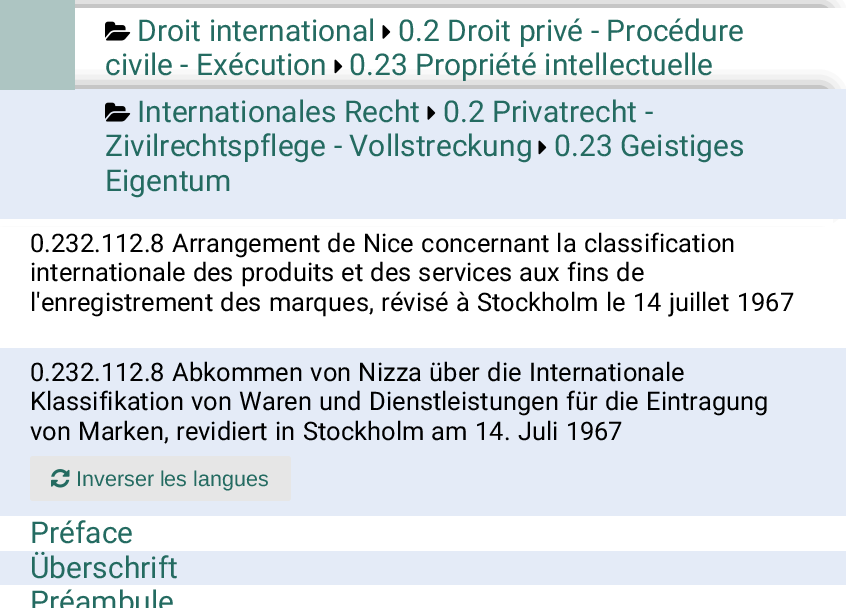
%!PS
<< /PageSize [846 608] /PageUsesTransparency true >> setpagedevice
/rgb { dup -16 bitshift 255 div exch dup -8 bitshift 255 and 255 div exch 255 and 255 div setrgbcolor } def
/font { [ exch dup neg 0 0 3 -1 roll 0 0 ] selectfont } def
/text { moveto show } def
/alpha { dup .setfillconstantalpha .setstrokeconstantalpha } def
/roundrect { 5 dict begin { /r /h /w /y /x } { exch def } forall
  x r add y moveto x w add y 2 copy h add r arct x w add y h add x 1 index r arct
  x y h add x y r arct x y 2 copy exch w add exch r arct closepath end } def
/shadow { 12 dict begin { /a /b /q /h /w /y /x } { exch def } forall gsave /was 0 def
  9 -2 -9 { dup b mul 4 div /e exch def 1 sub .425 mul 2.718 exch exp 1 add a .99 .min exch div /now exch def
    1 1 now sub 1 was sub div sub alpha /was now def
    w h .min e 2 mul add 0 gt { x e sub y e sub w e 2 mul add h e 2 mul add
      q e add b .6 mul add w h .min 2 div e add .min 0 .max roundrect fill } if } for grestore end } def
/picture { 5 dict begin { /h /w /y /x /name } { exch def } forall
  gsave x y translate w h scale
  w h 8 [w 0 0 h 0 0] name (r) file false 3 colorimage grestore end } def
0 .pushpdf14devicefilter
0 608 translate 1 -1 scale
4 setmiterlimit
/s1 { /Roboto-Regular 30 font 16#246B61 rgb } def
/s2 { /LiberationSans-Regular 21.5 font 16#246B61 rgb } def
16#FFFFFF rgb
0 0 846 608 rectfill
16#000000 rgb
0 12 825 60 0 10.5 0.75 shadow
16#FFFFFF rgb
75 8 771 81 rectfill
(pic3.raw) 334 59 9 15 picture
16#000000 rgb
0 93 825 110 0 10.5 0.75 shadow
16#E4EBF7 rgb
0 89 846 130 rectfill
16#ADC5C2 rgb
0 0 75 90 rectfill
(pic1.raw) 105 21 26 20 picture
s1
(Droit international) 137 41 text
(pic2.raw) 382 25 9 14 picture
(0.2 Droit privé - Procédure) 398 41 text
(civile - Exécution) 105 75 text
(0.23 Propriété intellectuelle) 349 75 text
(pic4.raw) 105 102 26 20 picture
(Internationales Recht) 137 122 text
(pic5.raw) 427 106 9 14 picture
(0.2 Privatrecht -) 443 122 text
(Zivilrechtspflege - Vollstreckung) 105 156 text
(pic6.raw) 538 140 9 15 picture
(0.23 Geistiges) 554 156 text
(Eigentum) 105 191 text
16#FFFFFF rgb
0 219 833 7 rectfill
/Roboto-Regular 25.5 font
16#000000 rgb
30 252 moveto 1 0 32 (0.232.112.8 Arrangement de Nice concernant la classification) widthshow
30 281 moveto 0.75 0 32 (internationale des produits et des services aux fins de) widthshow
30 311 moveto 1 0 32 (l'enregistrement des marques, révisé à Stockholm le 14 juillet 1967) widthshow
16#E4EBF7 rgb
0 348 846 168 rectfill
16#000000 rgb
30 381 moveto 1 0 32 (0.232.112.8 Abkommen von Nizza über die Internationale) widthshow
30 410 moveto 1 0 32 (Klassifikation von Waren und Dienstleistungen für die Eintragung) widthshow
30 440 moveto 1 0 32 (von Marken, revidiert in Stockholm am 14. Juli 1967) widthshow
16#E6E6E6 rgb
30 456 261 45 3 roundrect fill
(pic7.raw) 51 469 19 19 picture
s2
(Inverser les langues) 76 486 text
s1
(Préface) 30 543 text
16#E4EBF7 rgb
0 551 846 34 rectfill
s1
(Überschrift) 30 578 text
(Préambule) 30 612 text
.poppdf14devicefilter showpage
